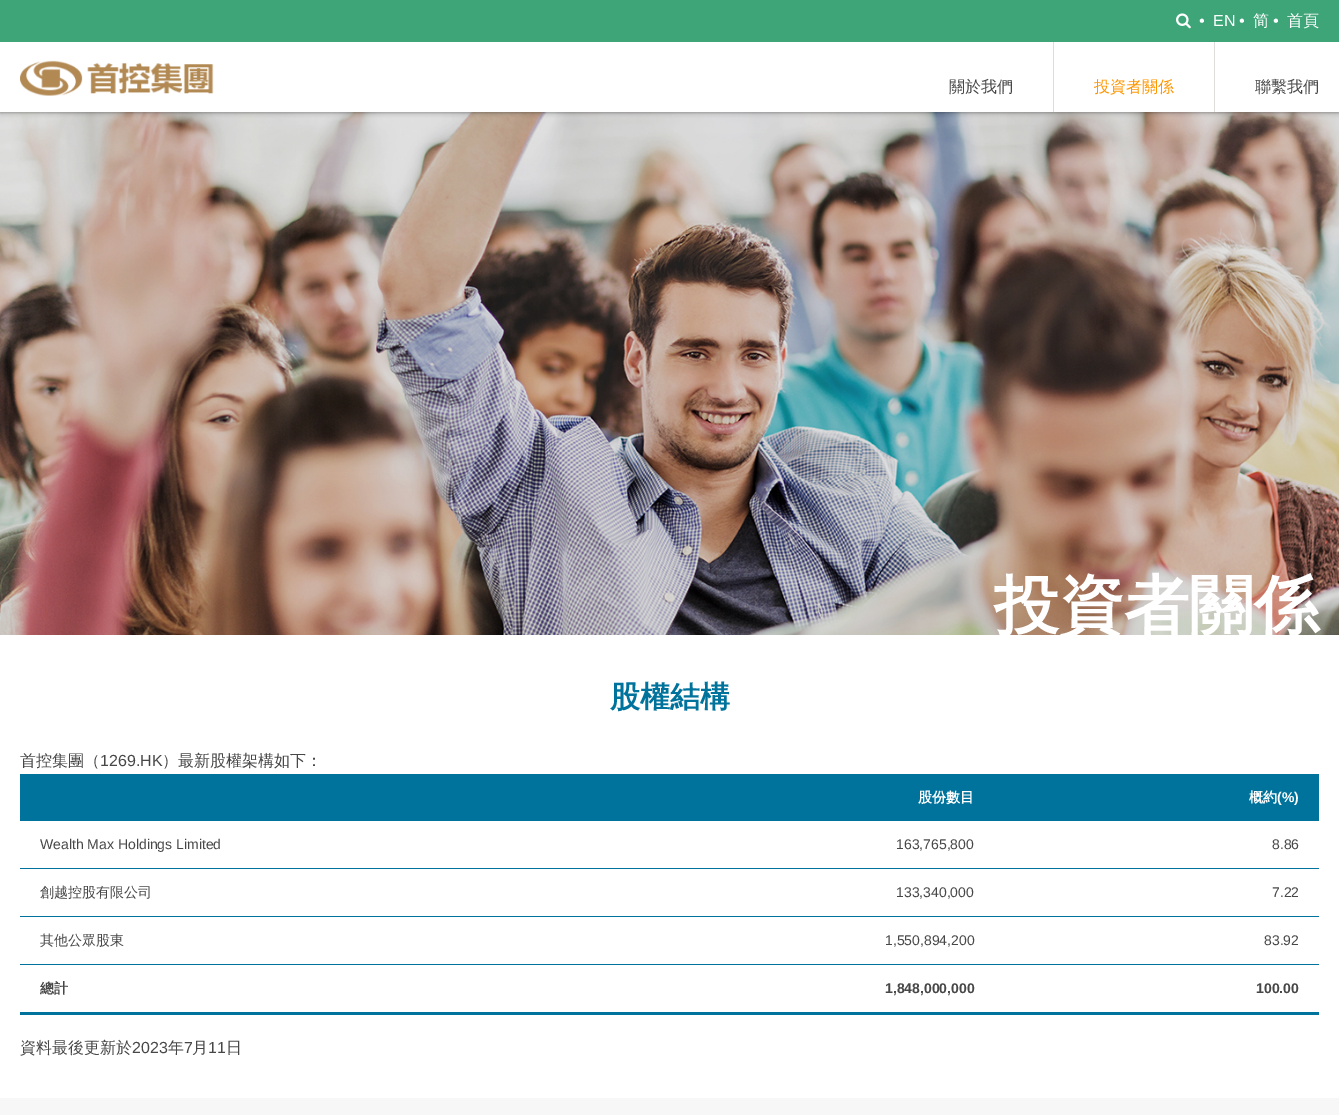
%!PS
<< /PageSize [1339 1115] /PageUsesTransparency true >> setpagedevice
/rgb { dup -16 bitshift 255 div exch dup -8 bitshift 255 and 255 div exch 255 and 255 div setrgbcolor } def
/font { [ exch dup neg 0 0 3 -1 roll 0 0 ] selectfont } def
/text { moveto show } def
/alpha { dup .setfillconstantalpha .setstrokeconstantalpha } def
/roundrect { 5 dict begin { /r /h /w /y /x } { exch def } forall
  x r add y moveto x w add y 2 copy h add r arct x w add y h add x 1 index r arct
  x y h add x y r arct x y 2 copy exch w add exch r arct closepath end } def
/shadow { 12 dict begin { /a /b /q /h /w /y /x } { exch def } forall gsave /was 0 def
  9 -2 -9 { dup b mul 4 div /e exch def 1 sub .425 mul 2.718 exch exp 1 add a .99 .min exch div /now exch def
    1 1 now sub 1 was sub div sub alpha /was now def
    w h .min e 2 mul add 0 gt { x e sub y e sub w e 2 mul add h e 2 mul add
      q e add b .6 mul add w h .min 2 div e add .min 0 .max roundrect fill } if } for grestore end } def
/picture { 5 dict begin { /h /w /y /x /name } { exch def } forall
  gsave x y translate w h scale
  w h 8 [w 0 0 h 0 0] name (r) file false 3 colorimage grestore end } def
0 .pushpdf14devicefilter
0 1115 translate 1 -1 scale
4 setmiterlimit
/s1 { /LiberationSans-Italic 16 font 16#FFFFFF rgb } def
/s2 { /LiberationSans-Regular 16 font 16#FFFFFF rgb } def
/s3 { /WenQuanYiZenHei-Medium 16 font 16#FFFFFF rgb } def
/s4 { /WenQuanYiZenHei-Medium 16 font 16#484747 rgb } def
/s5 { /WenQuanYiZenHei-Medium 16 font 16#FF9600 rgb } def
/s6 { /WenQuanYiZenHei-Bold 65 font 16#FFFFFF rgb } def
/s7 { /WenQuanYiZenHei-Bold 30 font 16#00739C rgb } def
/s8 { /LiberationSans-Regular 16 font 16#484747 rgb } def
/s9 { /WenQuanYiZenHei-Bold 14 font 16#FFFFFF rgb } def
/s10 { /LiberationSans-Bold 14 font 16#FFFFFF rgb } def
/s11 { /LiberationSans-Regular 14 font 16#484747 rgb } def
/s12 { /WenQuanYiZenHei-Medium 14 font 16#484747 rgb } def
/s13 { /WenQuanYiZenHei-Bold 14 font 16#484747 rgb } def
/s14 { /LiberationSans-Bold 14 font 16#484747 rgb } def
16#FFFFFF rgb
0 0 1339 1115 rectfill
(pic3.raw) 0 112 1339 523 picture
16#000000 rgb
0 0 1339 112 0 2.5 0.5 shadow
16#FFFFFF rgb
0 42 1339 70 rectfill
16#3EA578 rgb
0 0 1339 42 rectfill
(pic1.raw) 1176 13 15 16 picture
s1
(•) 1199 26 text
s2
(EN) 1213 26 text
s1
(•) 1239 26 text
s3
(简) 1253 26 text
s1
(•) 1273 26 text
s3
(首頁) 1287 26 text
(pic2.raw) 20 60 194 36 picture
s4
(關於我們) 949 92 text
16#DEDDDC rgb
1053 42 1 70 rectfill
s5
(投資者關係) 1094 92 text
16#DEDDDC rgb
1214 42 1 70 rectfill
s4
(聯繫我們) 1255 92 text
s6
(投資者關係) 994 628 text
s7
(股權結構) 610 707 text
s4
(首控集團（) 20 766 text
s8
(1269.HK) 100 766 text
s4
(）最新股權架構如下：) 162 766 text
16#00739C rgb
20 774 1299 47 rectfill
s9
(股份數目) 918 802 text
(概約) 1249 802 text
s10
(\(%\)) 1277 802 text
s11
(Wealth Max Holdings Limited) 40 849 text
(163,765,800) 896 849 text
16#00739C rgb
20 868 1299 1 rectfill
s11
(8.86) 1272 849 text
s12
(創越控股有限公司) 40 897 text
s11
(133,340,000) 896 897 text
16#00739C rgb
20 916 1299 1 rectfill
s11
(7.22) 1272 897 text
s12
(其他公眾股東) 40 945 text
s11
(1,550,894,200) 885 945 text
16#00739C rgb
20 964 1299 1 rectfill
s11
(83.92) 1264 945 text
s13
(總計) 40 993 text
s14
(1,848,000,000) 885 993 text
16#00739C rgb
20 1012 1299 3 rectfill
s14
(100.00) 1256 993 text
s4
(資料最後更新於) 20 1053 text
s8
(2023) 132 1053 text
s4
(年) 168 1053 text
s8
(7) 184 1053 text
s4
(月) 192 1053 text
s8
(11) 208 1053 text
s4
(日) 226 1053 text
16#F7F7F7 rgb
0 1098 1339 17 rectfill
.poppdf14devicefilter showpage
